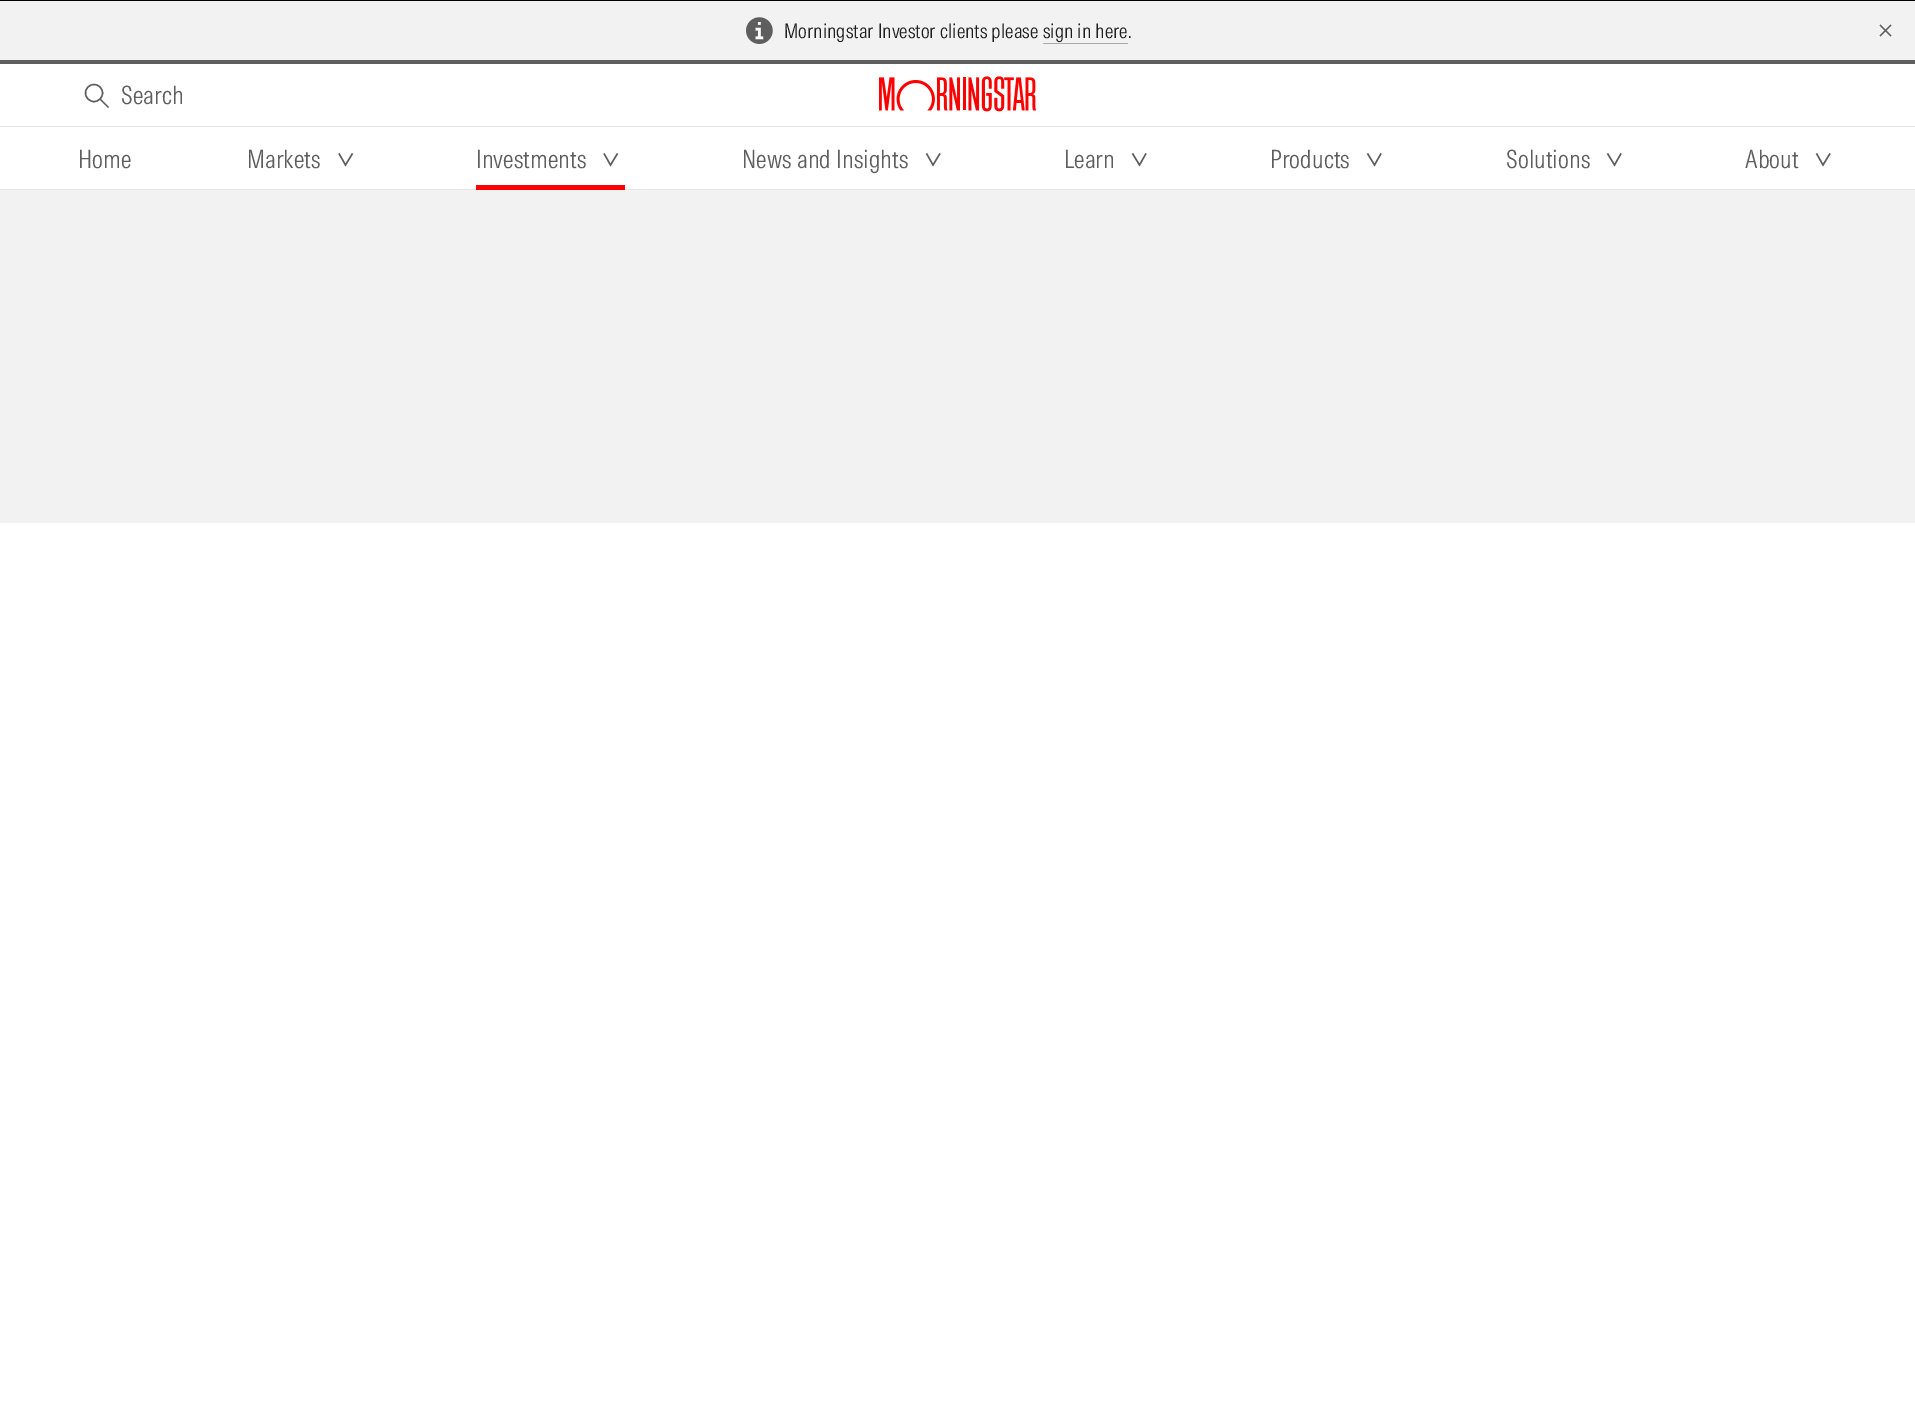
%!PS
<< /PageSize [1915 1419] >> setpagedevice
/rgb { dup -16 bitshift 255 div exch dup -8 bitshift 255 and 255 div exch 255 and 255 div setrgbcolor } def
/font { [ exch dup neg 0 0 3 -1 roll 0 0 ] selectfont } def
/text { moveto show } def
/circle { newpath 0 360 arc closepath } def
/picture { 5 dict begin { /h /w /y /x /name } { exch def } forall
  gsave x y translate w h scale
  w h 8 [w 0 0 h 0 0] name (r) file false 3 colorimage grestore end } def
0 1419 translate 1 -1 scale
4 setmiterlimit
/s1 { /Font-Regular 20 font 16#1E1E1E rgb } def
/s2 { /Font-Regular 25 font 16#5E5E5E rgb } def
16#FFFFFF rgb
0 0 1915 1419 rectfill
16#F2F2F2 rgb
0 1 1915 59 rectfill
16#000000 rgb
0 0 1915 1 rectfill
16#5E5E5E rgb
0 60 1915 4 rectfill
16#FFFFFF rgb
759.5 30.5 10.5 circle fill
(pic1.raw) 746 17 27 27 picture
s1
(Morningstar Investor clients please sign in here.) 784 38 text
16#ABABAB rgb
1043 43 85 1 rectfill
16#5E5E5E rgb
1.4 setlinewidth
1880 25 moveto 1891 36 lineto 1891 25 moveto 1880 36 lineto stroke
16#E5E5E5 rgb
0 189 1915 1 rectfill
16#5E5E5E rgb
100 99 moveto 108.5 107.5 lineto stroke
94 93 8.5 circle stroke
s2
(Search) 121 104 text
(pic2.raw) 879 76 157 36 picture
16#E5E5E5 rgb
0 126 1915 1 rectfill
s2
(Home) 78 168 text
(Markets) 247 168 text
352.5 153.5 moveto 345.5 165 lineto 339 153.5 lineto stroke
16#FF0000 rgb
476 185 149 5 rectfill
s2
(Investments) 476 168 text
617.5 153.5 moveto 610.5 165 lineto 604 153.5 lineto stroke
(News and Insights) 742 168 text
940 153.5 moveto 933 165 lineto 926.5 153.5 lineto stroke
(Learn) 1064 168 text
1146 153.5 moveto 1139.5 165 lineto 1132.5 153.5 lineto stroke
(Products) 1270 168 text
1381 153.5 moveto 1374.5 165 lineto 1367.5 153.5 lineto stroke
(Solutions) 1506 168 text
1621 153.5 moveto 1614.5 165 lineto 1607.5 153.5 lineto stroke
(About) 1745 168 text
1830 153.5 moveto 1823 165 lineto 1816.5 153.5 lineto stroke
16#F2F2F2 rgb
0 190 1915 333 rectfill
showpage
